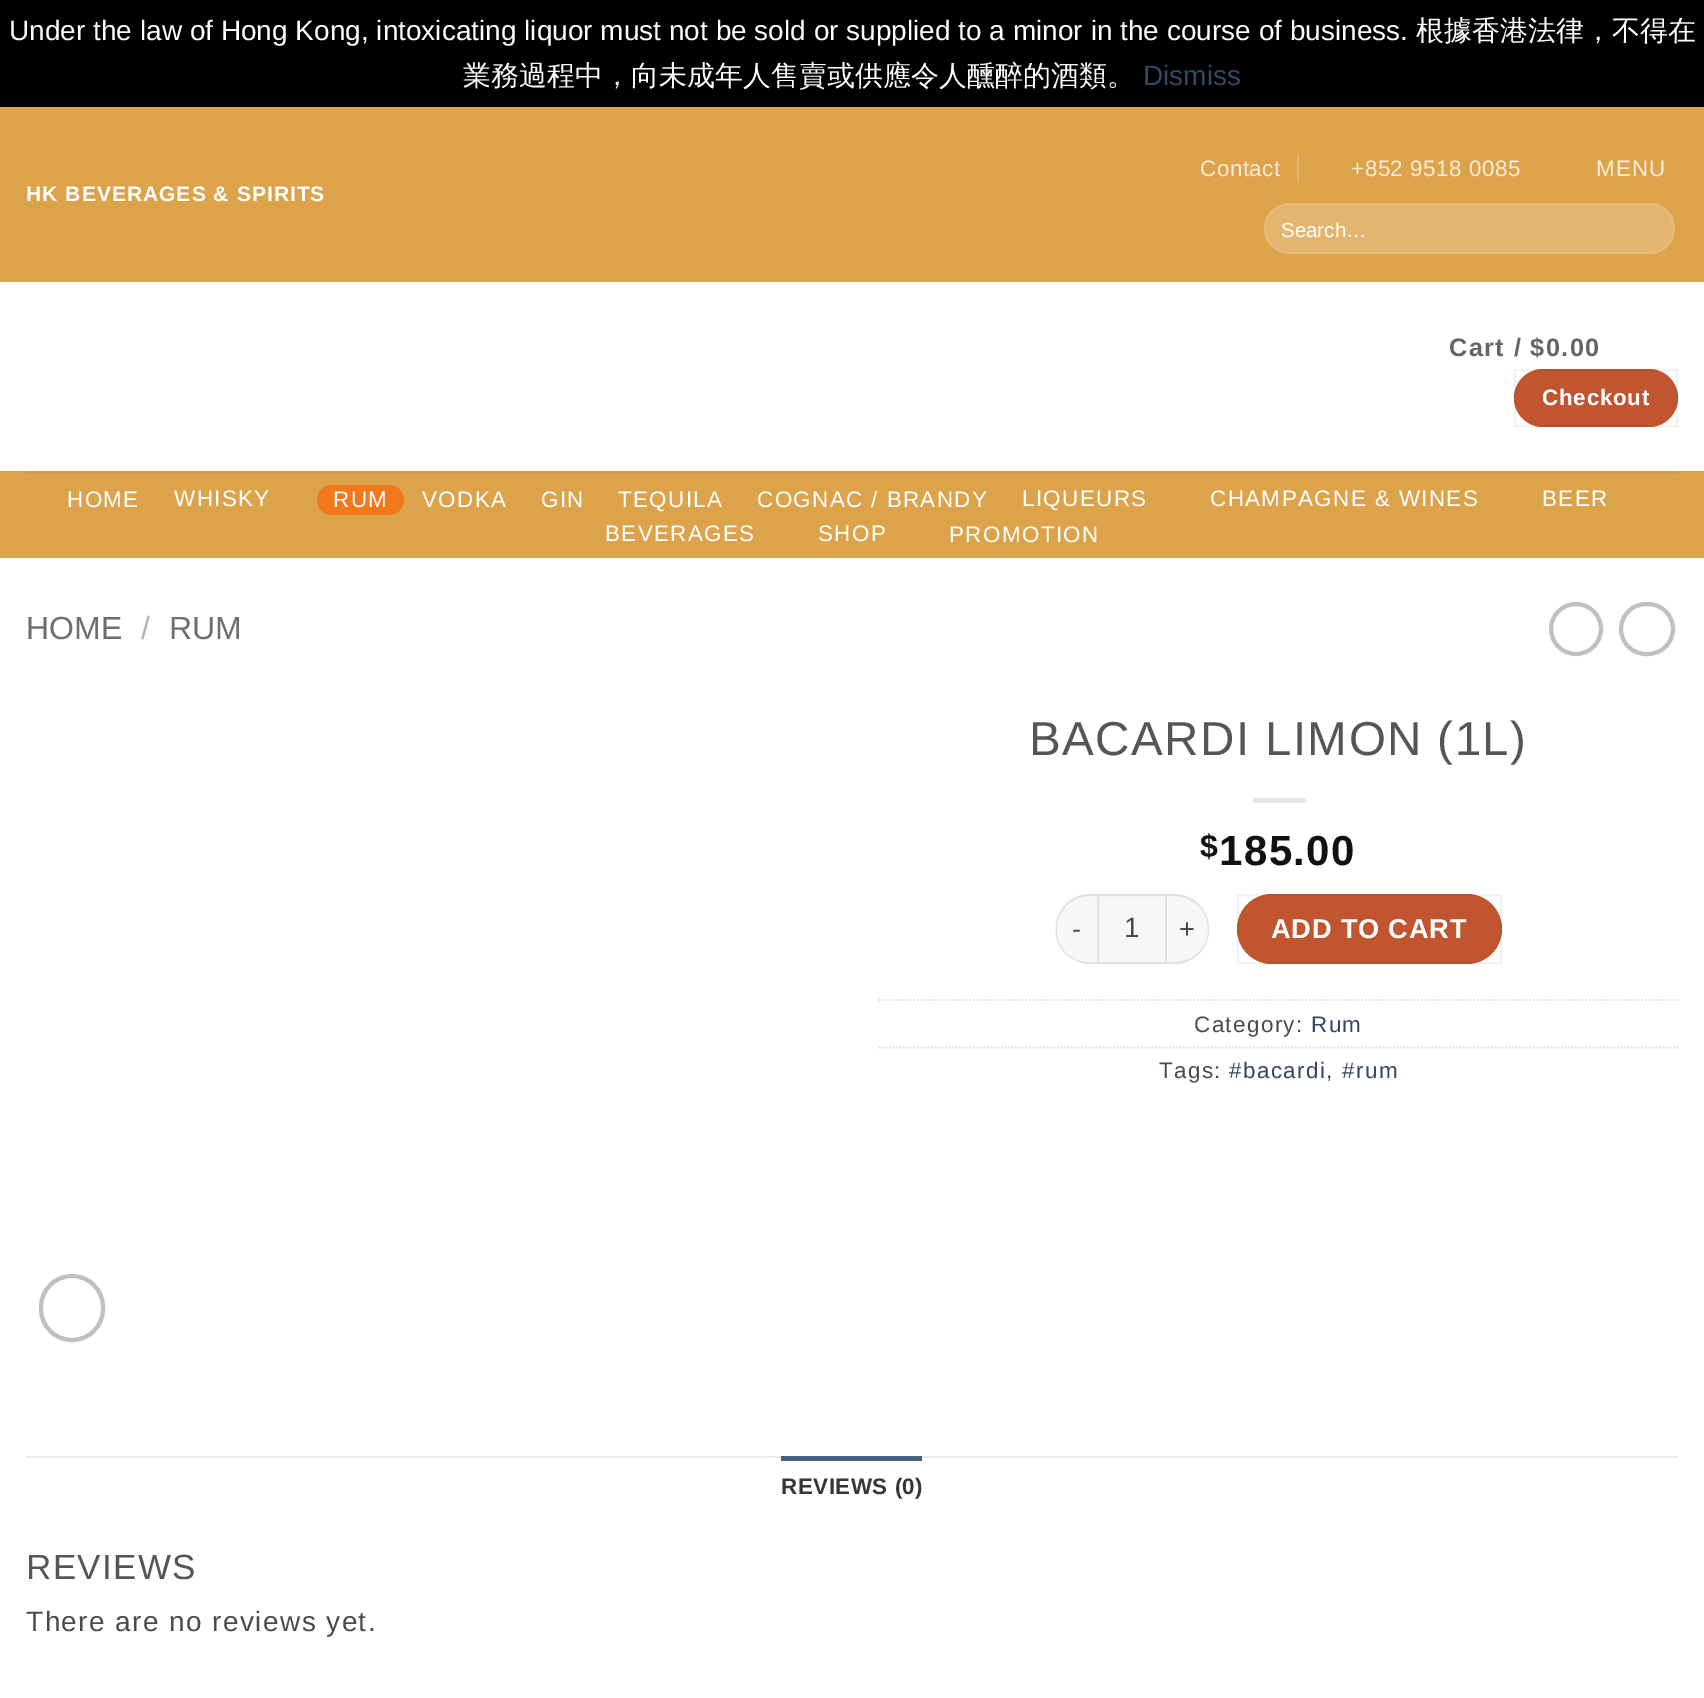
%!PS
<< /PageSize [1704 1698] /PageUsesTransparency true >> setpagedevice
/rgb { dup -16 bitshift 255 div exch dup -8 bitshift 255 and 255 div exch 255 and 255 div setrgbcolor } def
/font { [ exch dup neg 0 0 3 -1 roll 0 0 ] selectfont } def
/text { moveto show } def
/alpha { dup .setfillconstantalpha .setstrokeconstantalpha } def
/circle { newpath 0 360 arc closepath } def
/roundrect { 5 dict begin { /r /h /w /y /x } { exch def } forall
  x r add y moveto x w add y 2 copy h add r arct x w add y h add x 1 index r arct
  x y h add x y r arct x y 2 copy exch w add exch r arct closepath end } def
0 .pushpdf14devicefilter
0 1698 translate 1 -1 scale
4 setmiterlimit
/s1 { /LiberationSans-Regular 28 font 16#FFFFFF rgb } def
/s2 { /WenQuanYiZenHei-Medium 28 font 16#FFFFFF rgb } def
/s3 { /LiberationSans-Regular 28 font 16#334862 rgb } def
/s4 { /LiberationSans-Regular 20.5 font 16#FFFFFF rgb } def
/s5 { /LiberationSans-Regular 32 font 16#6E6E6E rgb } def
/s6 { /LiberationSans-Regular 32 font 16#B2B2B2 rgb } def
/s7 { /LiberationSans-Regular 28 font 16#4A4A4A rgb } def
16#000000 rgb
0 0 1704 1698 rectfill
s1
(Under the law of Hong Kong, intoxicating liquor must not be sold or supplied to a minor in the course of business.) 9 40 text
s2
(根據香港法律，不得在) 1416 40 text
(業務過程中，向未成年人售賣或供應令人醺醉的酒類。) 463 85 text
s3
(Dismiss) 1143 85 text
16#FFFFFF rgb
0 282 1704 1416 rectfill
16#DDA34B rgb
0 107 1704 175 rectfill
/LiberationSans-Bold 21 font
16#FFFFFF rgb
26 201 moveto 1.05 0 (HK BEVERAGES & SPIRITS) ashow
/LiberationSans-Regular 22.4 font
16#F8EDDB rgb
1200 176 moveto 0.5 0 (Contact) ashow
16#E4B56F rgb
1297 156 2 26 rectfill
16#F8EDDB rgb
1351 176 moveto 0.5 0 (+852 9518 0085) ashow
1596 176 moveto 1 0 (MENU) ashow
16#E4B56F rgb
1264 203 411 51 25.5 roundrect fill
0.09 alpha
16#FFFFFF rgb
2 setlinewidth
1265 204 409 49 24.5 roundrect stroke
1 alpha
s4
(Search…) 1281 237 text
/LiberationSans-Bold 25.25 font
16#656565 rgb
1449 356 moveto 1.4 0 (Cart / $0.00) ashow
16#C05530 rgb
1514 369 164 58 29 roundrect fill
0.05 alpha
16#000000 rgb
1515 370 162 56 rectstroke
/LiberationSans-Bold 22.4 font
1 alpha
16#FFFFFF rgb
1542 405 moveto 0.75 0 (Checkout) ashow
16#DDA34B rgb
0 471 1704 87 rectfill
16#CE9A4B rgb
26 471 1652 2 rectfill
/LiberationSans-Regular 22.4 font
16#FFFFFF rgb
67 507 moveto 1.4 0 (HOME) ashow
174 506 moveto 1.4 0 (WHISKY) ashow
16#F3781B rgb
317 485 87 30 15 roundrect fill
16#FFFFFF rgb
333 507 moveto 1.4 0 (RUM) ashow
422 507 moveto 1.4 0 (VODKA) ashow
541 507 moveto 1.4 0 (GIN) ashow
618 507 moveto 1.4 0 (TEQUILA) ashow
757 507 moveto 1.4 0 (COGNAC / BRANDY) ashow
1022 506 moveto 1.4 0 (LIQUEURS) ashow
1210 506 moveto 1.4 0 (CHAMPAGNE & WINES) ashow
1542 506 moveto 1.4 0 (BEER) ashow
605 541 moveto 1.4 0 (BEVERAGES) ashow
818 541 moveto 1.4 0 (SHOP) ashow
949 542 moveto 1.4 0 (PROMOTION) ashow
s5
(HOME) 26 639 text
s6
(/) 141 639 text
s5
(RUM) 169 639 text
16#C0C0C0 rgb
4 setlinewidth
1576 629 25 circle stroke
1621 604 52 50 25 roundrect stroke
/LiberationSans-Regular 47.6 font
16#555555 rgb
1029 755 moveto 1.4 0 (BACARDI LIMON \(1L\)) ashow
16#E6E6E6 rgb
1253 798 53 5 rectfill
/LiberationSans-Bold 32 font
16#111111 rgb
1200 857 moveto 1.4 0 ($) ashow
/LiberationSans-Bold 42 font
1219 865 moveto 1.4 0 (185.00) ashow
16#F7F7F7 rgb
1090 894 moveto 1097 894 lineto 1097 964 lineto 1090 964 lineto 1070.5 964 1055 948.5 1055 929 curveto 1055 909.5 1070.5 894 1090 894 curveto closepath fill
0.09 alpha
16#000000 rgb
1090 894 moveto 1097 894 lineto 1097 964 lineto 1090 964 1083 964 1077 961 curveto 1042 947 1053 894 1090 894 curveto closepath 1090 896 moveto 1097 896 lineto 1097 962 lineto 1090 962 1084 963 1077 960 curveto 1044 946 1054 896 1090 896 curveto closepath eofill
/LiberationSans-Regular 27.25 font
1 alpha
16#4A4A4A rgb
1072 938 moveto 0.75 0 (-) ashow
16#F7F7F7 rgb
1098 895 moveto 1166 895 lineto 1166 963 lineto 1098 963 lineto closepath gsave fill grestore
16#E1E1E1 rgb
2 setlinewidth
stroke
s7
(1) 1124 937 text
16#F7F7F7 rgb
1167 894 moveto 1174 894 lineto 1193.5 894 1209 909.5 1209 929 curveto 1209 948.5 1193.5 964 1174 964 curveto 1167 964 lineto closepath fill
0.09 alpha
16#000000 rgb
1167 894 moveto 1174 894 lineto 1194 894 1209 910 1209 929 curveto 1209 949 1194 964 1174 964 curveto 1167 964 lineto closepath 1167 896 moveto 1174 896 lineto 1193 896 1208 911 1208 929 curveto 1208 948 1193 962 1174 962 curveto 1167 962 lineto closepath eofill
/LiberationSans-Regular 27.25 font
1 alpha
16#4A4A4A rgb
1179 938 moveto 0.75 0 (+) ashow
16#C05530 rgb
1237 894 265 70 35 roundrect fill
0.05 alpha
16#000000 rgb
1238 895 263 68 rectstroke
/LiberationSans-Bold 27.25 font
1 alpha
16#FFFFFF rgb
1271 938 moveto 0.75 0 (ADD TO CART) ashow
16#DDDDDD rgb
1.8 setlinewidth
[1.75 1.75] 0 setdash
878.5 1000 moveto 1678 1000 lineto stroke
/LiberationSans-Regular 22.4 font
16#4A4A4A rgb
1194 1032 moveto 1.4 0 (Category:) ashow
16#334862 rgb
1311 1032 moveto 1.4 0 (Rum) ashow
16#DDDDDD rgb
878.5 1047.5 moveto 1678 1047.5 lineto stroke
16#4A4A4A rgb
1159 1078 moveto 1.4 0 (Tags:) ashow
16#334862 rgb
1229 1078 moveto 1.4 0 (#bacardi) ashow
16#4A4A4A rgb
1326 1078 moveto 1.4 0 (,) ashow
16#334862 rgb
1342 1078 moveto 1.4 0 (#rum) ashow
16#C0C0C0 rgb
4 setlinewidth
[] 0 setdash
41 1276 62 64 31 roundrect stroke
16#ECECEC rgb
26 1456 1652 2 rectfill
16#446084 rgb
781 1456 141 5 rectfill
/LiberationSans-Bold 22.4 font
16#363636 rgb
781 1494 moveto 0.5 0 (REVIEWS \(0\)) ashow
/LiberationSans-Regular 35 font
16#555555 rgb
26 1579 moveto 1.4 0 (REVIEWS) ashow
/LiberationSans-Regular 28 font
16#4A4A4A rgb
26 1631 moveto 1.4 0 (There are no reviews yet.) ashow
.poppdf14devicefilter showpage
